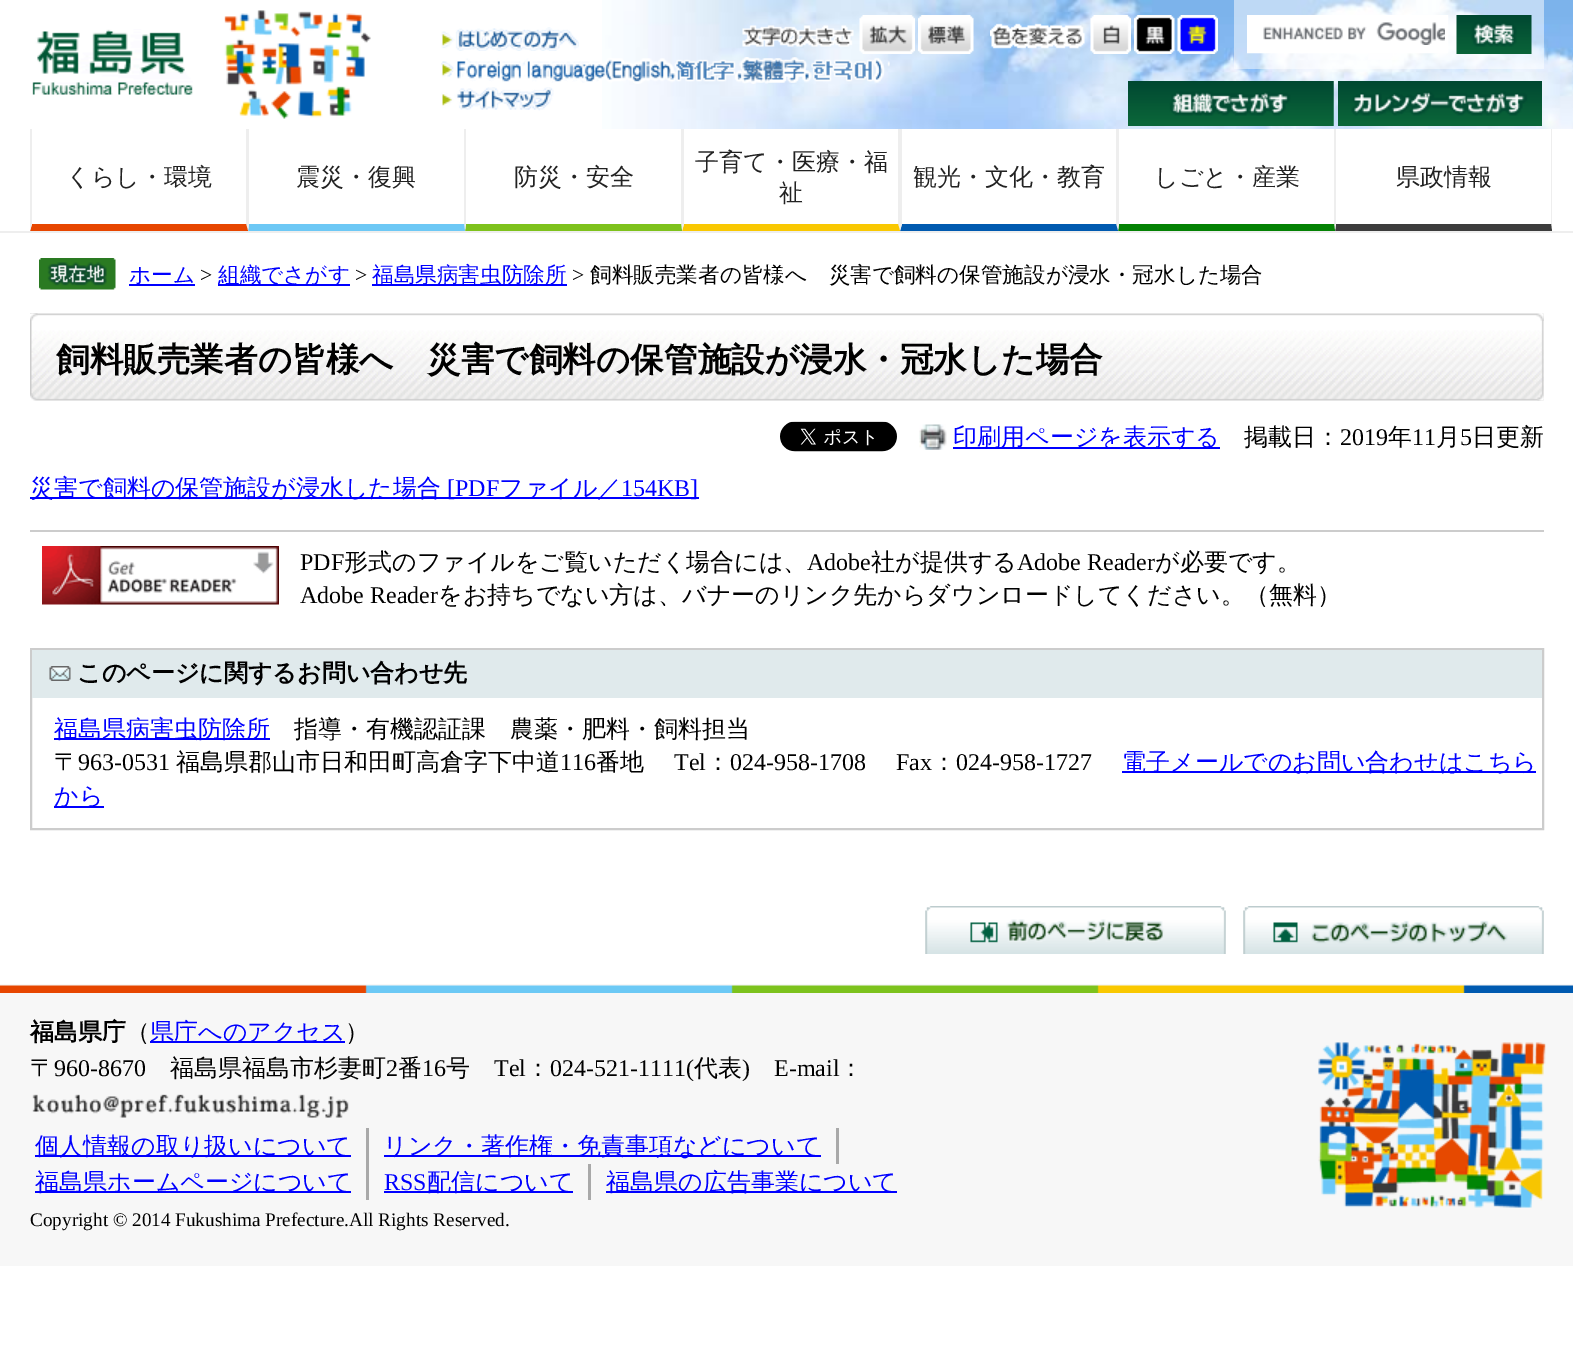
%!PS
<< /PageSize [1573 1357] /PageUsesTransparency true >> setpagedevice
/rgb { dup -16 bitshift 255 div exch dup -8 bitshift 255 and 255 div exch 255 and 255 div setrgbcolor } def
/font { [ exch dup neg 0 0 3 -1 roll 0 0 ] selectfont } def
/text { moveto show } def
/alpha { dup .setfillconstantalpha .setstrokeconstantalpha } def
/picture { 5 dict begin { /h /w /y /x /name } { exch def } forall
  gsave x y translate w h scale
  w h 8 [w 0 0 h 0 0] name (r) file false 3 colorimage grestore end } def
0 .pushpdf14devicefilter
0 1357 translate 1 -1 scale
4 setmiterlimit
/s1 { /WenQuanYiZenHei-Medium 24 font 16#222222 rgb } def
/s2 { /WenQuanYiZenHei-Medium 21.6 font 16#0000FF rgb } def
/s3 { /LiberationSerif-Regular 21.6 font 16#000000 rgb } def
/s4 { /WenQuanYiZenHei-Medium 21.6 font 16#000000 rgb } def
/s5 { /WenQuanYiZenHei-Bold 33.6 font 16#000000 rgb } def
/s6 { /WenQuanYiZenHei-Medium 24 font 16#0000FF rgb } def
/s7 { /WenQuanYiZenHei-Medium 24 font 16#000000 rgb } def
/s8 { /LiberationSerif-Regular 24 font 16#000000 rgb } def
/s9 { /LiberationSerif-Regular 24 font 16#0000FF rgb } def
/s10 { /WenQuanYiZenHei-Bold 24 font 16#000000 rgb } def
/s11 { /LiberationSerif-Regular 19.2 font 16#000000 rgb } def
16#FFFFFF rgb
0 0 1573 1357 rectfill
(pic1.raw) 602 0 971 129 picture
(pic2.raw) 224 10 147 109 picture
(pic3.raw) 32 29 161 66 picture
(pic4.raw) 441 27 138 24 picture
(pic5.raw) 442 27 137 24 picture
(pic6.raw) 441 57 449 27 picture
(pic7.raw) 442 57 448 27 picture
(pic8.raw) 441 87 113 24 picture
(pic9.raw) 442 88 109 22 picture
(pic10.raw) 742 25 112 22 picture
(pic11.raw) 859 15 56 39 picture
(pic12.raw) 918 15 56 39 picture
(pic13.raw) 990 23 95 26 picture
(pic14.raw) 1090 15 41 39 picture
(pic15.raw) 1134 15 41 39 picture
(pic16.raw) 1177 15 41 39 picture
0.5 alpha
1234 0 310 69 rectfill
1 alpha
1250 18 195 32 rectfill
(pic17.raw) 1263 22 182 23 picture
3 setlinewidth
1248.5 16.5 198 35 rectstroke
(pic18.raw) 1456 15 76 39 picture
(pic19.raw) 1333 81 1 45 picture
(pic20.raw) 1128 81 206 45 picture
(pic21.raw) 1338 81 204 45 picture
16#EEEEEE rgb
0 231 1573 2 rectfill
248 129 moveto 248 231 lineto 246 224 lineto 246 129 lineto closepath fill
16#E74600 rgb
248 231 moveto 30 231 lineto 32 224 lineto 246 224 lineto closepath fill
16#EEEEEE rgb
30 231 moveto 30 129 lineto 32 129 lineto 32 224 lineto closepath fill
s1
(くらし・環境) 66 185 text
16#EEEEEE rgb
465 129 moveto 465 231 lineto 464 224 lineto 464 129 lineto closepath fill
16#6DC8F5 rgb
465 231 moveto 248 231 lineto 249 224 lineto 464 224 lineto closepath fill
16#EEEEEE rgb
248 231 moveto 248 129 lineto 249 129 lineto 249 224 lineto closepath fill
s1
(震災・復興) 296 185 text
16#EEEEEE rgb
682 129 moveto 682 231 lineto 681 224 lineto 681 129 lineto closepath fill
16#7EC21D rgb
682 231 moveto 465 231 lineto 466 224 lineto 681 224 lineto closepath fill
16#EEEEEE rgb
465 231 moveto 465 129 lineto 466 129 lineto 466 224 lineto closepath fill
s1
(防災・安全) 514 185 text
16#EEEEEE rgb
900 129 moveto 900 231 lineto 898 224 lineto 898 129 lineto closepath fill
16#F9C801 rgb
900 231 moveto 682 231 lineto 684 224 lineto 898 224 lineto closepath fill
16#EEEEEE rgb
682 231 moveto 682 129 lineto 684 129 lineto 684 224 lineto closepath fill
s1
(子育て・医療・福) 695 170 text
(祉) 779 201 text
16#EEEEEE rgb
1118 129 moveto 1118 231 lineto 1116 224 lineto 1116 129 lineto closepath fill
16#005AB0 rgb
1118 231 moveto 900 231 lineto 902 224 lineto 1116 224 lineto closepath fill
16#EEEEEE rgb
900 231 moveto 900 129 lineto 902 129 lineto 902 224 lineto closepath fill
s1
(観光・文化・教育) 913 185 text
16#EEEEEE rgb
1335 129 moveto 1335 231 lineto 1334 224 lineto 1334 129 lineto closepath fill
16#048204 rgb
1335 231 moveto 1118 231 lineto 1119 224 lineto 1334 224 lineto closepath fill
16#EEEEEE rgb
1118 231 moveto 1118 129 lineto 1119 129 lineto 1119 224 lineto closepath fill
s1
(しごと・産業) 1154 185 text
16#EEEEEE rgb
1552 129 moveto 1552 231 lineto 1551 224 lineto 1551 129 lineto closepath fill
16#3C3C3C rgb
1552 231 moveto 1335 231 lineto 1336 224 lineto 1551 224 lineto closepath fill
16#EEEEEE rgb
1335 231 moveto 1335 129 lineto 1336 129 lineto 1336 224 lineto closepath fill
s1
(県政情報) 1396 185 text
(pic22.raw) 39 258 77 32 picture
16#0000FF rgb
129 284 66 2 rectfill
s2
(ホーム) 129 282 text
s3
(>) 200 282 text
16#0000FF rgb
218 284 132 2 rectfill
s2
(組織でさがす) 218 282 text
s3
(>) 355 282 text
16#0000FF rgb
372 284 195 2 rectfill
s2
(福島県病害虫防除所) 372 282 text
s3
(>) 572 282 text
s4
(飼料販売業者の皆様へ　災害で飼料の保管施設が浸水・冠水した場合) 590 282 text
(pic23.raw) 30 313 1514 88 picture
(pic24.raw) 1537 313 7 88 picture
(pic25.raw) 30 313 1514 8 picture
(pic26.raw) 30 313 8 8 picture
s5
(飼料販売業者の皆様へ　災害で飼料の保管施設が浸水・冠水した場合) 56 371 text
(pic27.raw) 780 421 117 31 picture
(pic28.raw) 919 424 28 26 picture
16#0000FF rgb
953 447 267 2 rectfill
s6
(印刷用ページを表示する) 953 445 text
s7
(掲載日：) 1244 445 text
s8
(2019) 1340 445 text
s7
(年) 1388 445 text
s8
(11) 1412 445 text
s7
(月) 1436 445 text
s8
(5) 1460 445 text
s7
(日更新) 1472 445 text
16#0000FF rgb
30 497 669 2 rectfill
(災害で飼料の保管施設が浸水した場合) 30 496 text
s9
([PDF) 447 496 text
s6
(ファイル／) 499 496 text
s9
(154KB]) 621 496 text
16#CCCCCC rgb
30 530 1514 2 rectfill
(pic29.raw) 42 546 237 59 picture
s8
(PDF) 300 570 text
s7
(形式のファイルをご覧いただく場合には、) 344 570 text
s8
(Adobe) 807 570 text
s7
(社が提供する) 871 570 text
s8
(Adobe Reader) 1017 570 text
s7
(が必要です。) 1155 570 text
s8
(Adobe Reader) 300 603 text
s7
(をお持ちでない方は、バナーのリンク先からダウンロードしてください。（無料）) 438 603 text
16#CCCCCC rgb
2 setlinewidth
31 649 1512 180 rectstroke
16#E0EAEC rgb
32 650 1510 48 rectfill
(pic30.raw) 49 666 22 15 picture
s10
(このページに関するお問い合わせ先) 77 681 text
16#0000FF rgb
54 738 216 2 rectfill
s6
(福島県病害虫防除所) 54 737 text
s7
(指導・有機認証課　農薬・肥料・飼料担当) 294 737 text
(〒) 54 770 text
s8
(963-0531) 78 770 text
s7
(福島県郡山市日和田町高倉字下中道) 176 770 text
s8
(116) 560 770 text
s7
(番地) 596 770 text
s8
(Tel) 674 770 text
s7
(：) 706 770 text
s8
(024-958-1708) 730 770 text
(Fax) 896 770 text
s7
(：) 932 770 text
s8
(024-958-1727) 956 770 text
16#0000FF rgb
1122 771 414 2 rectfill
s6
(電子メールでのお問い合わせはこちら) 1122 770 text
54 806 50 2 rectfill
(から) 54 804 text
(pic31.raw) 925 906 301 48 picture
(pic32.raw) 925 907 301 47 picture
(pic33.raw) 1243 906 301 48 picture
(pic34.raw) 1243 907 301 47 picture
16#F7F7F7 rgb
0 984 1573 282 rectfill
(pic35.raw) 0 985 1573 8 picture
(pic36.raw) 1318 1042 228 166 picture
s10
(福島県庁) 30 1040 text
s7
(（) 126 1040 text
16#0000FF rgb
150 1041 195 2 rectfill
(県庁へのアクセス) 150 1040 text
s7
(）) 345 1040 text
(〒) 30 1076 text
s8
(960-8670) 54 1076 text
s7
(福島県福島市杉妻町) 170 1076 text
s8
(2) 386 1076 text
s7
(番) 398 1076 text
s8
(16) 422 1076 text
s7
(号) 446 1076 text
s8
(Tel) 494 1076 text
s7
(：) 526 1076 text
s8
(024-521-1111\() 550 1076 text
s7
(代表) 694 1076 text
s8
(\)) 742 1076 text
(E-mail) 774 1076 text
s7
(：) 839 1076 text
(pic37.raw) 32 1094 317 24 picture
16#A9A9A9 rgb
366 1128 3 72 rectfill
16#0000FF rgb
35 1155 316 2 rectfill
(個人情報の取り扱いについて) 35 1154 text
16#A9A9A9 rgb
836 1128 3 36 rectfill
16#0000FF rgb
384 1155 437 2 rectfill
(リンク・著作権・免責事項などについて) 383 1154 text
35 1191 316 2 rectfill
(福島県ホームページについて) 35 1190 text
16#A9A9A9 rgb
588 1164 3 36 rectfill
s9
(RSS) 384 1190 text
384 1191 189 2 rectfill
s6
(配信について) 427 1190 text
606 1191 291 2 rectfill
(福島県の広告事業について) 606 1190 text
s11
(Copyright © 2014 Fukushima Prefecture.All Rights Reserved.) 30 1226 text
.poppdf14devicefilter showpage
